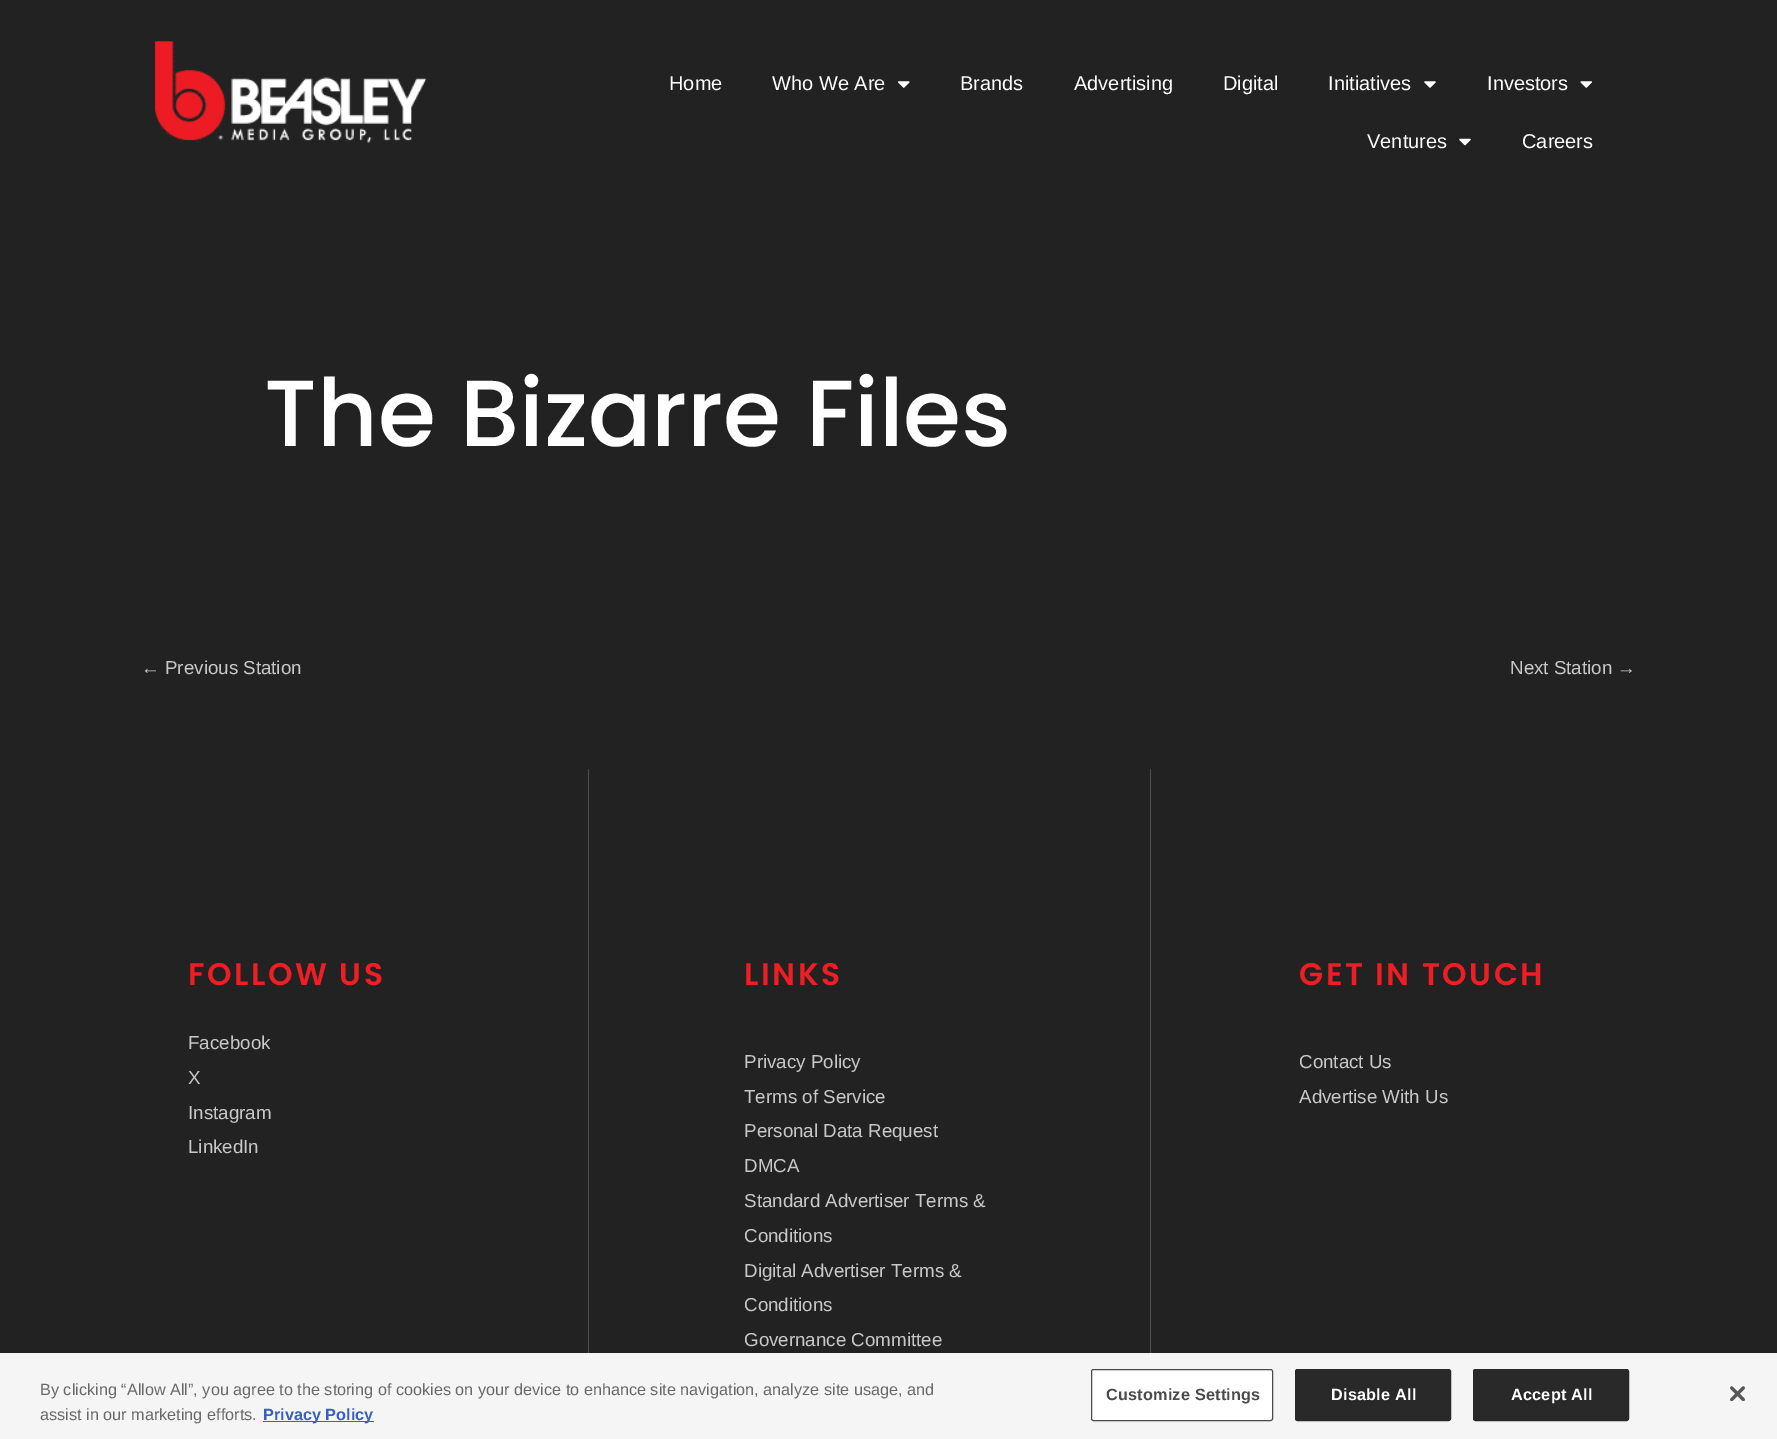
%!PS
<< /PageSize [1777 1439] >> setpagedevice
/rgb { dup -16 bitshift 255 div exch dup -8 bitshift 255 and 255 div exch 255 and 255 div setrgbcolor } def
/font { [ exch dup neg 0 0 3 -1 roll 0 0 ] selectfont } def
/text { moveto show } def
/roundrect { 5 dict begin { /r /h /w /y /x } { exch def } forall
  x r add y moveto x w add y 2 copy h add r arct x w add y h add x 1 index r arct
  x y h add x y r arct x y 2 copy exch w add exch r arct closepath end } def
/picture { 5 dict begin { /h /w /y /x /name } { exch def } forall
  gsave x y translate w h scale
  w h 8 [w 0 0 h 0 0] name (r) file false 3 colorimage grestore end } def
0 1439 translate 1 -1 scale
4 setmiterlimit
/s1 { /LiberationSans-Regular 20 font 16#FFFFFF rgb } def
/s2 { /Poppins-Medium 93.75 font 16#FFFFFF rgb } def
/s3 { /LiberationSans-Regular 18.75 font 16#C8C8C8 rgb } def
/s4 { /LiberationSans-Regular 16.25 font 16#696969 rgb } def
/s5 { /LiberationSans-Bold 16.25 font 16#3860BE rgb } def
16#222222 rgb
0 0 1777 1439 rectfill
(pic1.raw) 154 41 273 102 picture
s1
(Home) 669 90 text
(Who We Are) 772 90 text
(pic2.raw) 898 81 12 7 picture
(Brands) 960 90 text
(Advertising) 1074 90 text
(Digital) 1223 90 text
(Initiatives) 1328 90 text
(pic3.raw) 1424 81 12 7 picture
(Investors) 1487 90 text
(pic4.raw) 1580 81 12 7 picture
(Ventures) 1367 148 text
(pic5.raw) 1459 138 12 8 picture
(Careers) 1522 148 text
s2
(The Bizarre Files) 264 446 text
s3
(← Previous Station) 141 674 text
(Next Station →) 1510 674 text
/Poppins-SemiBold 31.25 font
16#ED1E24 rgb
188 985 moveto 2.5 0 (FOLLOW US) ashow
s3
(Facebook) 188 1049 text
(X) 188 1084 text
(Instagram) 188 1119 text
(LinkedIn) 188 1153 text
16#4E4E4E rgb
588 769 1 584 rectfill
/Poppins-SemiBold 31.25 font
16#ED1E24 rgb
744 985 moveto 2.5 0 (LINKS) ashow
s3
(Privacy Policy) 744 1068 text
(Terms of Service) 744 1103 text
(Personal Data Request) 744 1137 text
(DMCA) 744 1172 text
(Standard Advertiser Terms &) 744 1207 text
(Conditions) 744 1242 text
(Digital Advertiser Terms &) 744 1277 text
(Conditions) 744 1311 text
(Governance Committee) 744 1346 text
16#4E4E4E rgb
1150 769 1 584 rectfill
/Poppins-SemiBold 31.25 font
16#ED1E24 rgb
1299 985 moveto 2.5 0 (GET IN TOUCH) ashow
s3
(Contact Us) 1299 1068 text
(Advertise With Us) 1299 1103 text
16#F5F5F5 rgb
0 1353 1777 86 rectfill
s4
(By clicking “Allow All”, you agree to the storing of cookies on your device to enhance site navigation, analyze site usage, and) 40 1395 text
(assist in our marketing efforts.) 40 1420 text
16#3860BE rgb
263 1421 111 1 rectfill
s5
(Privacy Policy) 263 1420 text
16#FFFFFF rgb
1091.5 1369.5 181 51 2 roundrect gsave fill grestore
16#4A4A4A rgb
stroke
1106 1400 moveto 0.2 0 (Customize Settings) ashow
16#292929 rgb
1295.5 1369.5 155 51 2 roundrect gsave fill grestore
stroke
16#FFFFFF rgb
1331 1400 moveto 0.2 0 (Disable All) ashow
16#292929 rgb
1473.5 1369.5 155 51 2 roundrect gsave fill grestore
stroke
16#FFFFFF rgb
1511 1400 moveto 0.2 0 (Accept All) ashow
(pic6.raw) 1730 1386 15 15 picture
showpage
